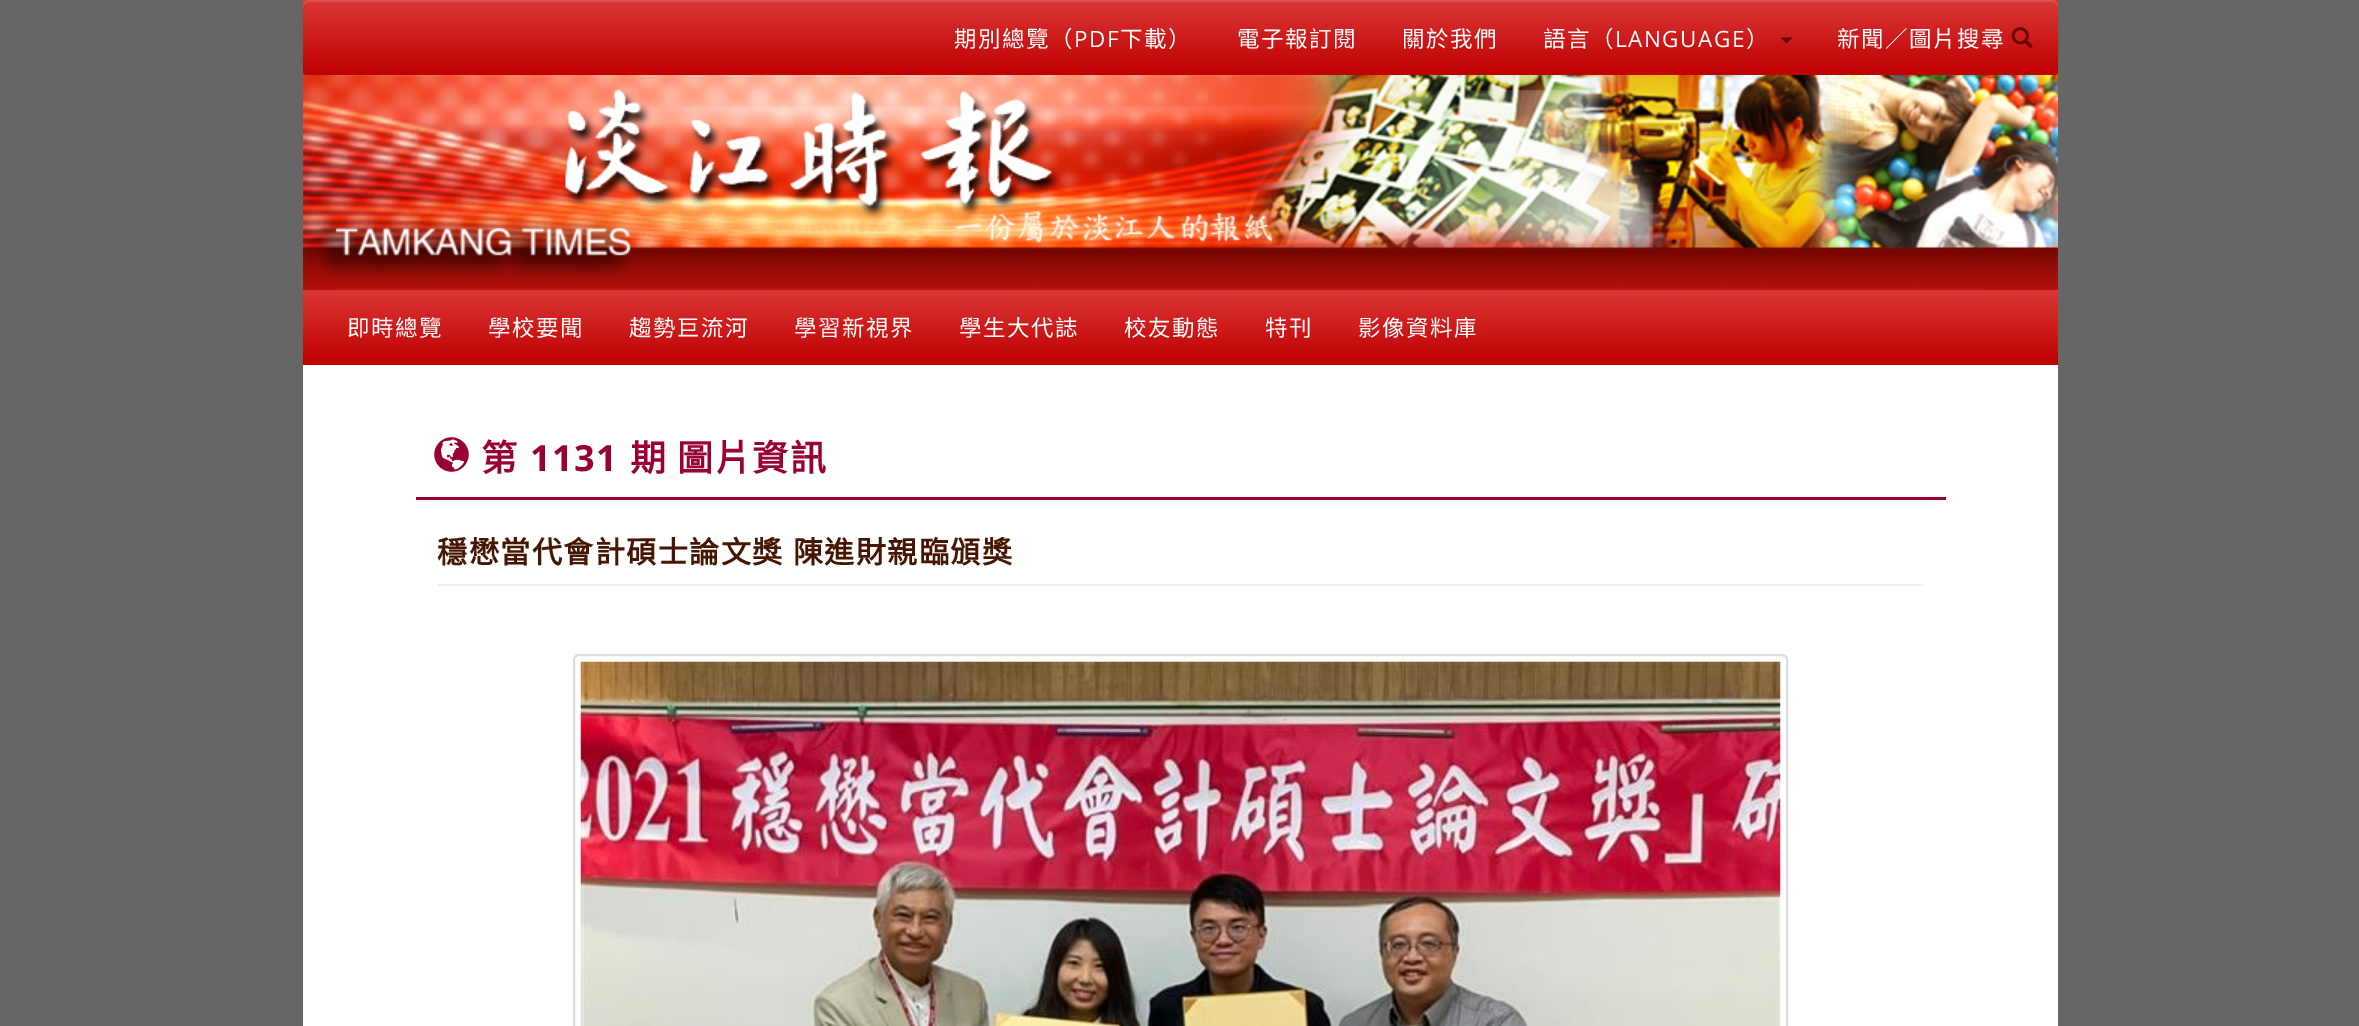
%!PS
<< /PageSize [2359 1026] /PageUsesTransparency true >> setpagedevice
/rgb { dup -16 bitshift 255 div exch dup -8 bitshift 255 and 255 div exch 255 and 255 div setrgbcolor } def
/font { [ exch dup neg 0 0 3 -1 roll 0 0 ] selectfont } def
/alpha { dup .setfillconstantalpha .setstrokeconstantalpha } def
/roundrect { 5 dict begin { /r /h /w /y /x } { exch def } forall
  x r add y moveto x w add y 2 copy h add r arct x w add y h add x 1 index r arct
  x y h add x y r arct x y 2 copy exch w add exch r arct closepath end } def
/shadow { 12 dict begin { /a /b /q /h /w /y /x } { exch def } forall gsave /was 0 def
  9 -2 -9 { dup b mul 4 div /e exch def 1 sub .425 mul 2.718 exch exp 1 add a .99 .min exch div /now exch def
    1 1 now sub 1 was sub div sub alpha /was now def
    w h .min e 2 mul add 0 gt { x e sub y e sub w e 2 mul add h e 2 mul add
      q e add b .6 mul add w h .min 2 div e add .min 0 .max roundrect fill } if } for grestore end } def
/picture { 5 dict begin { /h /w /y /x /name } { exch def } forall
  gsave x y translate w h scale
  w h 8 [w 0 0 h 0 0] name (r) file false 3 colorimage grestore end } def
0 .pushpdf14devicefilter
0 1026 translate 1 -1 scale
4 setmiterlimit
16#666666 rgb
0 0 2359 1026 rectfill
gsave 303 0 moveto 2058 0 lineto 2058 290 lineto 303 290 lineto closepath clip newpath
<< /ShadingType 2 /ColorSpace /DeviceRGB /Coords [1181 0 1181 365] /Extend [true true] /Function << /FunctionType 2 /Domain [0 1] /C0 [0.859 0.216 0.216] /C1 [0.749 0 0] /N 1 >> >> shfill grestore
16#000000 rgb
303 2 1755 75 6 4 0.07 shadow
gsave 303 0 1755 75 6 roundrect clip newpath
<< /ShadingType 2 /ColorSpace /DeviceRGB /Coords [1181 0 1181 75] /Extend [true true] /Function << /FunctionType 2 /Domain [0 1] /C0 [0.859 0.216 0.216] /C1 [0.749 0 0] /N 1 >> >> shfill grestore
0.15 alpha
16#FFFFFF rgb
309 2 moveto 2052 2 lineto 2055 2 2058 4 2058 8 curveto 2058 4 2057 0 2052 0 curveto 309 0 lineto 304 0 303 4 303 8 curveto 303 4 306 2 309 2 curveto closepath fill
/NotoSansCJKTC-Regular 22.5 font
1 alpha
954 47 moveto 1.5 0 (期別總覽（) ashow
/OpenSans-Regular 22.5 font
1074 47 moveto 1.5 0 (PDF) ashow
/NotoSansCJKTC-Regular 22.5 font
1120 47 moveto 1.5 0 (下載）) ashow
1237 47 moveto 1.5 0 (電子報訂閱) ashow
1402 47 moveto 1.5 0 (關於我們) ashow
1543 47 moveto 1.5 0 (語言（) ashow
/OpenSans-Regular 22.5 font
1615 47 moveto 1.5 0 (LANGUAGE) ashow
/NotoSansCJKTC-Regular 22.5 font
1746 47 moveto 1.5 0 (）) ashow
16#670400 rgb
1780.5 37.5 moveto 1792.5 37.5 lineto 1786.5 43.5 lineto closepath fill
16#FFFFFF rgb
1837 47 moveto 1.5 0 (新聞／圖片搜尋) ashow
(pic1.raw) 2011 27 22 22 picture
(pic2.raw) 303 75 1755 215 picture
gsave 303 290 moveto 2058 290 lineto 2058 365 lineto 303 365 lineto closepath clip newpath
<< /ShadingType 2 /ColorSpace /DeviceRGB /Coords [1181 289 1181 365] /Extend [true true] /Function << /FunctionType 2 /Domain [0 1] /C0 [0.859 0.216 0.216] /C1 [0.749 0 0] /N 1 >> >> shfill grestore
347 336 moveto 1.5 0 (即時總覽) ashow
488 336 moveto 1.5 0 (學校要聞) ashow
629 336 moveto 1.5 0 (趨勢巨流河) ashow
794 336 moveto 1.5 0 (學習新視界) ashow
959 336 moveto 1.5 0 (學生大代誌) ashow
1124 336 moveto 1.5 0 (校友動態) ashow
1265 336 moveto 1.5 0 (特刊) ashow
1358 336 moveto 1.5 0 (影像資料庫) ashow
303 365 1755 661 rectfill
16#990134 rgb
416 497 1530 3 rectfill
(pic3.raw) 434 437 35 35 picture
/NotoSansCJKTC-Bold 36 font
481 471 moveto 1.5 0 (第) ashow
/OpenSans-Bold 36 font
530 471 moveto 1.5 0 (1131) ashow
/NotoSansCJKTC-Bold 36 font
630 471 moveto 1.5 0 (期 圖片資訊) ashow
16#EEEEEE rgb
438 584 1485 2 rectfill
/NotoSansCJKTC-Bold 30 font
16#471600 rgb
437 563 moveto 1 0 32 1.5 0 (穩懋當代會計碩士論文獎 陳進財親臨頒獎) awidthshow
16#DDDDDD rgb
2 setlinewidth
574 655 1213 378 5 roundrect stroke
(pic4.raw) 580 661 1201 365 picture
.poppdf14devicefilter showpage
